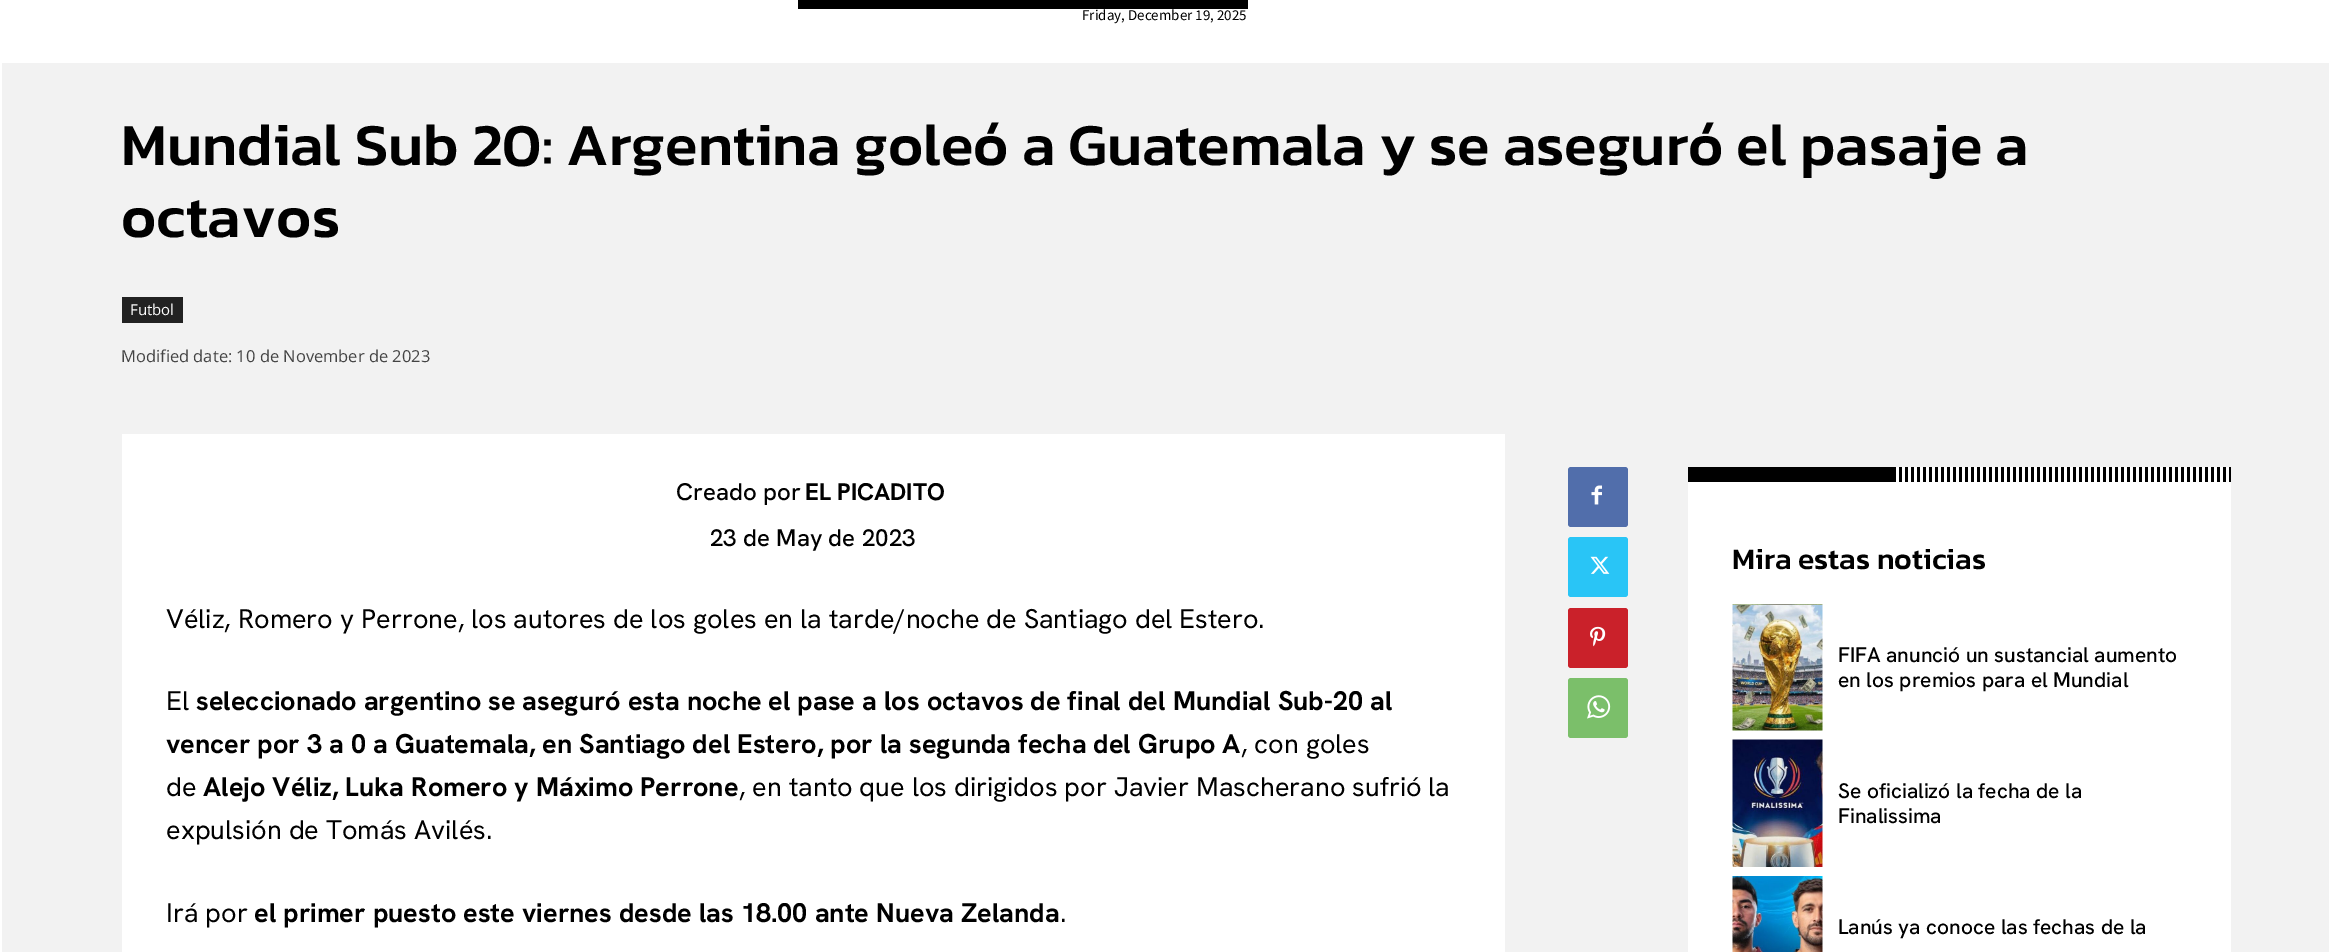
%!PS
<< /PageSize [2329 952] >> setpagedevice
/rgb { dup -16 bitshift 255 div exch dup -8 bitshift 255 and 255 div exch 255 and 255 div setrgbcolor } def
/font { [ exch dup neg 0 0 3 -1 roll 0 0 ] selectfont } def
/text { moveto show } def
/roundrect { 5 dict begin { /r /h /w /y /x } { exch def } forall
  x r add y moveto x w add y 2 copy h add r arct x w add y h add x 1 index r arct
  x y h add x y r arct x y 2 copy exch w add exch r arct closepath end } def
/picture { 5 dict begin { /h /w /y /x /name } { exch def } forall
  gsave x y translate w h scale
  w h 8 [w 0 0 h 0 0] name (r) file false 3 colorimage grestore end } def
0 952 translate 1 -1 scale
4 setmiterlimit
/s1 { /SourceSansPro-Regular 15 font 16#000000 rgb } def
/s2 { /Kanit-Medium 60 font 16#000000 rgb } def
/s3 { /OpenSans-Regular 15 font 16#FFFFFF rgb } def
/s4 { /OpenSans-Regular 16.5 font 16#444444 rgb } def
/s5 { /HankenGrotesk-Medium 24 font 16#000000 rgb } def
/s6 { /HankenGrotesk-Bold 24 font 16#000000 rgb } def
/s7 { /HankenGrotesk-Regular 27 font 16#000000 rgb } def
/s8 { /HankenGrotesk-Bold 27 font 16#000000 rgb } def
/s9 { /Kanit-Medium 30 font 16#000000 rgb } def
/s10 { /HankenGrotesk-Medium 21 font 16#000000 rgb } def
16#FFFFFF rgb
0 0 2329 952 rectfill
16#000000 rgb
798 0 450 9 rectfill
s1
(Friday, December 19, 2025) 1082 20 text
16#F2F2F2 rgb
2 63 2327 889 rectfill
s2
(Mundial Sub 20: Argentina goleó a Guatemala y se aseguró el pasaje a) 121 165 text
(octavos) 121 237 text
16#222222 rgb
122 297 61 26 rectfill
s3
(Futbol) 130 315 text
s4
(Modified date: 10 de November de 2023) 121 362 text
16#FFFFFF rgb
122 434 1383 518 rectfill
s5
(Creado por) 676 500 text
s6
(EL PICADITO) 805 500 text
s5
(23 de May de 2023) 710 546 text
s7
(Véliz, Romero y Perrone, los autores de los goles en la tarde/noche de Santiago del Estero.) 166 628 text
(El) 166 710 text
s8
(seleccionado argentino se aseguró esta noche el pase a los octavos de final del Mundial Sub-20 al) 196 710 text
(vencer por 3 a 0 a Guatemala, en Santiago del Estero, por la segunda fecha del Grupo A) 166 753 text
s7
(, con goles) 1241 753 text
(de) 166 796 text
s8
(Alejo Véliz, Luka Romero y Máximo Perrone) 203 796 text
s7
(, en tanto que los dirigidos por Javier Mascherano sufrió la) 739 796 text
(expulsión de Tomás Avilés.) 166 839 text
(Irá por) 166 922 text
s8
(el primer puesto este viernes desde las 18.00 ante Nueva Zelanda) 254 922 text
s7
(.) 1060 922 text
1688 467 208 15 rectfill
(pic1.raw) 1896 467 335 15 picture
16#516EAB rgb
1568 467 60 60 3 roundrect fill
(pic2.raw) 1591 485 11 20 picture
16#29C5F6 rgb
1568 537 60 60 3 roundrect fill
(pic3.raw) 1590 556 20 18 picture
16#CA212A rgb
1568 608 60 60 3 roundrect fill
(pic4.raw) 1590 626 16 21 picture
16#7BBF6A rgb
1568 678 60 60 3 roundrect fill
(pic5.raw) 1587 695 24 24 picture
16#FFFFFF rgb
1688 482 543 470 rectfill
s9
(Mira estas noticias) 1732 569 text
(pic6.raw) 1732 604 91 127 picture
s10
(FIFA anunció un sustancial aumento) 1838 662 text
(en los premios para el Mundial) 1838 687 text
(pic7.raw) 1732 739 91 128 picture
(Se oficializó la fecha de la) 1838 798 text
(Finalissima) 1838 823 text
(pic8.raw) 1732 876 91 76 picture
(Lanús ya conoce las fechas de la) 1838 934 text
showpage
